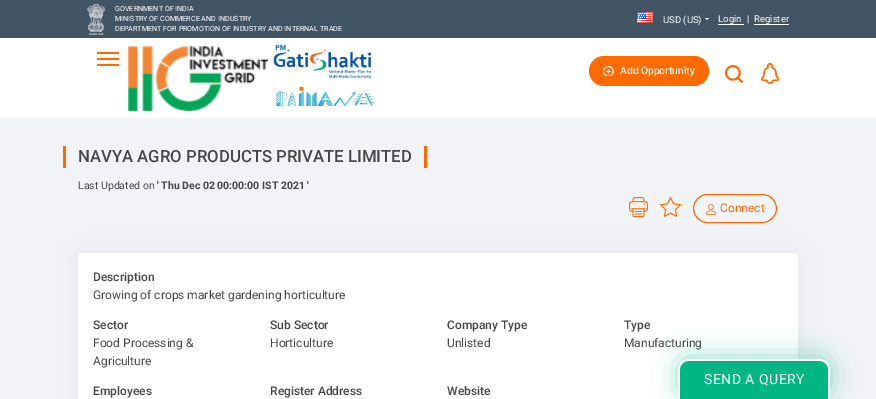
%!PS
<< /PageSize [876 399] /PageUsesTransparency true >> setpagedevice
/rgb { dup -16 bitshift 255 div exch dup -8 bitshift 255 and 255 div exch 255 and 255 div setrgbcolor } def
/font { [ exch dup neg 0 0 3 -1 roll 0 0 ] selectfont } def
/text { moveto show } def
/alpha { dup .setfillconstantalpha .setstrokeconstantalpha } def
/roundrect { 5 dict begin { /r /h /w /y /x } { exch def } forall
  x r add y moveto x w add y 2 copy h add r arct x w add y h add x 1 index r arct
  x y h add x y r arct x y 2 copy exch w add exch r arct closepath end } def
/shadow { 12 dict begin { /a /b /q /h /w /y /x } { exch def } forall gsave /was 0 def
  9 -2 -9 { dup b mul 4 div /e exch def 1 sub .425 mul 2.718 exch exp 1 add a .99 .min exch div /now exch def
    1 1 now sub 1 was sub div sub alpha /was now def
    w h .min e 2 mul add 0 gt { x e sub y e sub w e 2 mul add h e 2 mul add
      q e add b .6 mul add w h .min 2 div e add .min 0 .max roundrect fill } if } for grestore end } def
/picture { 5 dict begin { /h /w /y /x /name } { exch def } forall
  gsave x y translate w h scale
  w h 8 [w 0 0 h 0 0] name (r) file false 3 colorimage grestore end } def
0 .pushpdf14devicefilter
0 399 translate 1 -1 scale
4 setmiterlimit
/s1 { /Roboto-Regular 7.2 font 16#FFFFFF rgb } def
/s2 { /Roboto-Regular 9.5 font 16#FFFFFF rgb } def
/s3 { /Roboto-Medium 10.25 font 16#FFFFFF rgb } def
/s4 { /Roboto-Medium 16.75 font 16#474747 rgb } def
/s5 { /Roboto-Regular 10.5 font 16#474747 rgb } def
/s6 { /Roboto-Bold 10.5 font 16#474747 rgb } def
/s7 { /Roboto-Regular 12 font 16#FF6B00 rgb } def
/s8 { /Roboto-Medium 12 font 16#474747 rgb } def
/s9 { /Roboto-Regular 12 font 16#474747 rgb } def
16#F2F3F7 rgb
0 0 876 399 rectfill
16#415464 rgb
0 0 876 38 rectfill
(pic1.raw) 87 4 18 31 picture
s1
(GOVERNMENT OF INDIA) 115 11 text
(MINISTRY OF COMMERCE AND INDUSTRY) 115 21 text
(DEPARTMENT FOR PROMOTION OF INDUSTRY AND INTERNAL TRADE) 115 31 text
(pic2.raw) 637 12 16 11 picture
s2
(USD \(US\)) 663 23 text
705 18 moveto 709 18 lineto 707 20 lineto closepath fill
(Login) 718 22 text
718 24 26 1 rectfill
(|) 747 22 text
(Register) 754 22 text
754 24 35 1 rectfill
0 38 876 80 rectfill
16#FF6B00 rgb
97 52 22 2 rectfill
97 58 22 2 rectfill
97 64 22 2 rectfill
(pic3.raw) 128 46 140 66 picture
(pic4.raw) 273 44 99 35 picture
589 56 120 30 15 roundrect fill
(pic5.raw) 603 66 11 10 picture
s3
(Add Opportunity) 620 74 text
(pic6.raw) 725 65 18 18 picture
(pic7.raw) 761 63 18 21 picture
(pic8.raw) 276 86 99 21 picture
16#FF6B00 rgb
63 146 3 22 rectfill
s4
(NAVYA AGRO PRODUCTS PRIVATE LIMITED) 78 162 text
16#FF6B00 rgb
424 146 3 22 rectfill
s5
(Last Updated on) 78 189 text
s6
(' Thu Dec 02 00:00:00 IST 2021 ') 157 189 text
(pic9.raw) 629 197 19 20 picture
(pic10.raw) 660 197 21 20 picture
16#FF6B00 rgb
693.5 194.5 83 28 14 roundrect stroke
(pic11.raw) 706 204 10 11 picture
s7
(Connect) 720 212 text
16#000000 rgb
78 253 720 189 4 13 0.05 shadow
16#FFFFFF rgb
78 253 720 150 4 roundrect fill
s8
(Description) 93 281 text
s9
(Growing of crops market gardening horticulture) 93 299 text
s8
(Sector) 93 329 text
s9
(Food Processing &) 93 347 text
(Agriculture) 93 365 text
s8
(Sub Sector) 270 329 text
s9
(Horticulture) 270 347 text
s8
(Company Type) 447 329 text
s9
(Unlisted) 447 347 text
s8
(Type) 624 329 text
s9
(Manufacturing) 624 347 text
s8
(Employees) 93 395 text
(Register Address) 270 395 text
(Website) 447 395 text
16#00B784 rgb
678 357 152 40 10 12.5 0.43 shadow
688 359 moveto 820 359 lineto 825.5 359 830 363.5 830 369 curveto 830 399 lineto 678 399 lineto 678 369 lineto 678 363.5 682.5 359 688 359 curveto closepath fill
16#FFFFFF rgb
688 359 moveto 820 359 lineto 826 359 830 363 830 369 curveto 830 399 lineto 678 399 lineto 678 369 lineto 678 363 682 359 688 359 curveto closepath 688 361 moveto 820 361 lineto 824 361 828 365 828 369 curveto 828 399 lineto 680 399 lineto 680 369 lineto 680 365 684 361 688 361 curveto closepath eofill
/Roboto-Regular 14 font
704 384 moveto 0.5 0 (SEND A QUERY) ashow
.poppdf14devicefilter showpage
